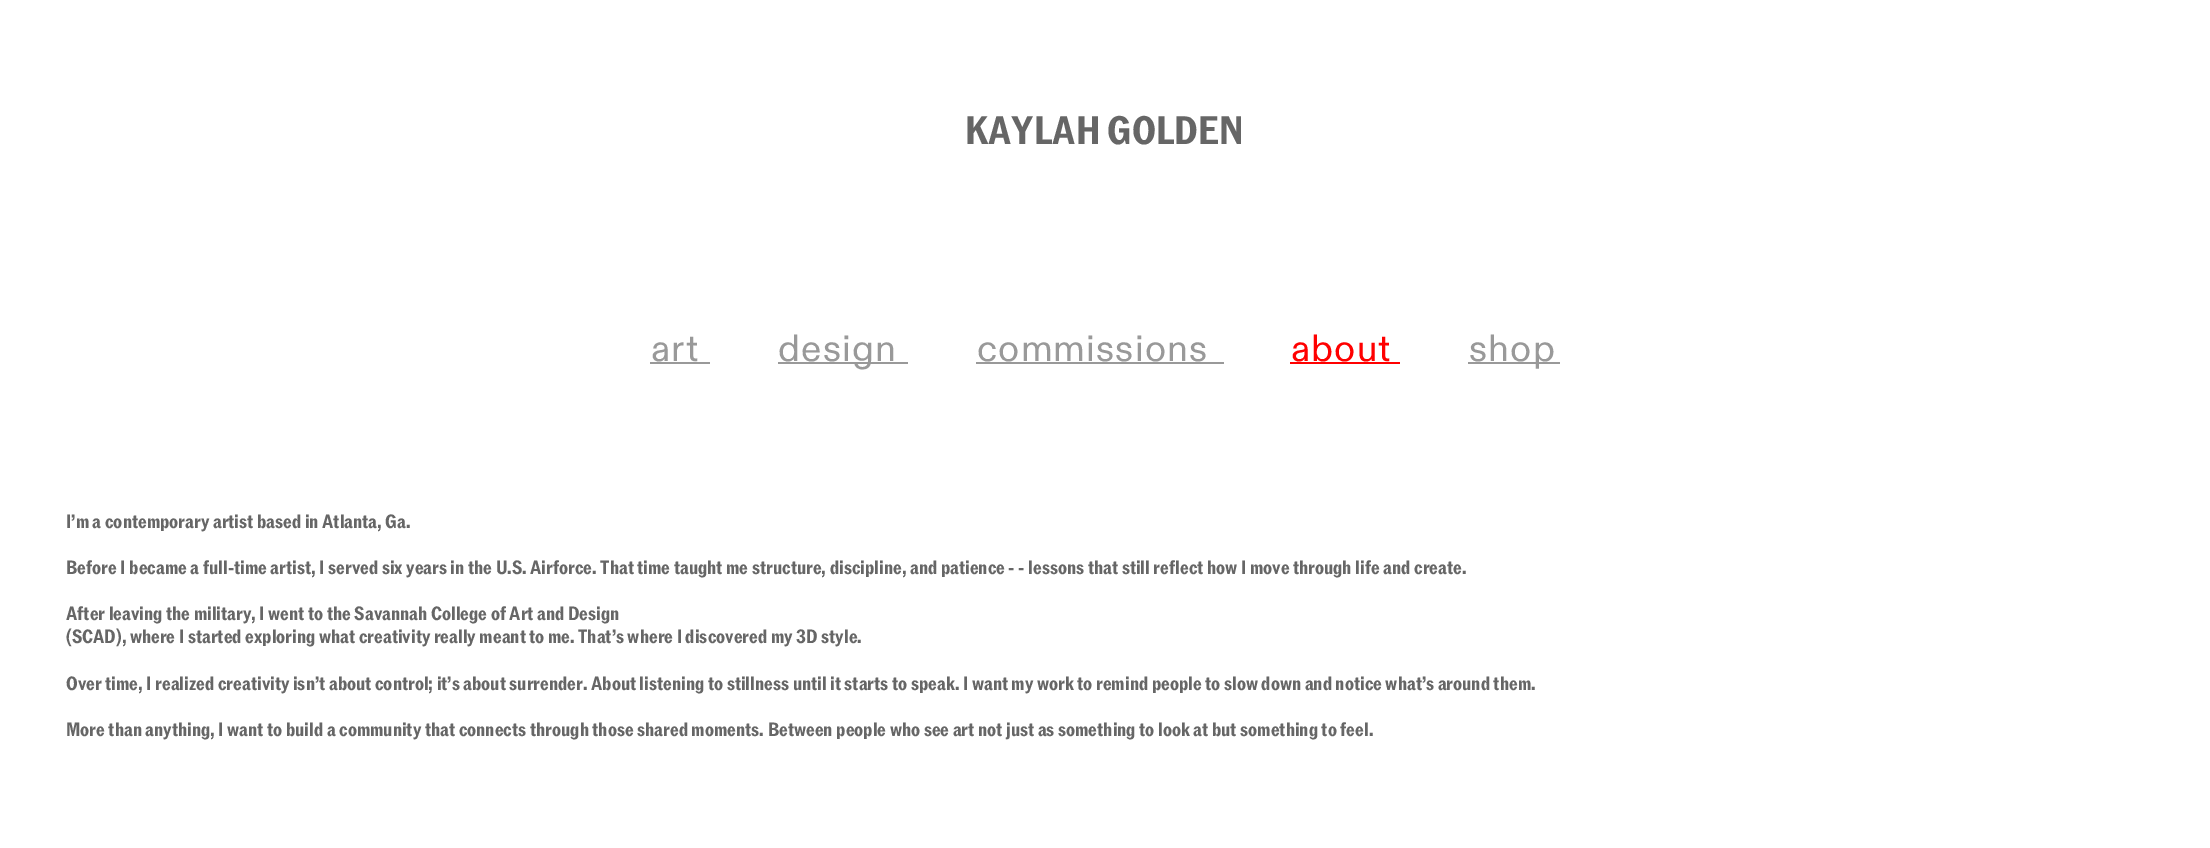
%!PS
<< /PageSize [2210 848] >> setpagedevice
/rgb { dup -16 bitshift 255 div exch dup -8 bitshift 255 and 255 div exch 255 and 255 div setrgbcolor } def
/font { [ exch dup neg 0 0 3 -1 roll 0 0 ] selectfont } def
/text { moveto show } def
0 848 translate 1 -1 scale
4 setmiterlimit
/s1 { /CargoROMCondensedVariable-Bold 39.5 font 16#666666 rgb } def
/s2 { /CargoROMCondensedVariable-Bold 19.23 font 16#666666 rgb } def
16#FFFFFF rgb
0 0 2210 848 rectfill
s1
(KAYLAH GOLDEN) 965 144 text
/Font-Regular 37.75 font
16#999999 rgb
651 361 moveto 1.1 0 (art) ashow
650 362 60 2 rectfill
778 362 130 2 rectfill
778 361 moveto 1.1 0 (design) ashow
977 361 moveto 1.1 0 (commissions) ashow
976 362 248 2 rectfill
16#FF0000 rgb
1291 361 moveto 1.1 0 (about) ashow
1290 362 110 2 rectfill
16#999999 rgb
1468 362 92 2 rectfill
1469 361 moveto 1.1 0 (shop) ashow
s2
(I’m a contemporary artist based in Atlanta, Ga.) 66 528 text
(Before I became a full-time artist, I served six years in the U.S. Airforce. That time taught me structure, discipline, and patience - - lessons that still reflect how I move through life and create.) 66 574 text
(After leaving the military, I went to the Savannah College of Art and Design) 66 620 text
(\(SCAD\), where I started exploring what creativity really meant to me. That’s where I discovered my 3D style.) 66 643 text
(Over time, I realized creativity isn’t about control; it’s about surrender. About listening to stillness until it starts to speak. I want my work to remind people to slow down and notice what’s around them.) 66 690 text
(More than anything, I want to build a community that connects through those shared moments. Between people who see art not just as something to look at but something to feel.) 66 736 text
showpage
